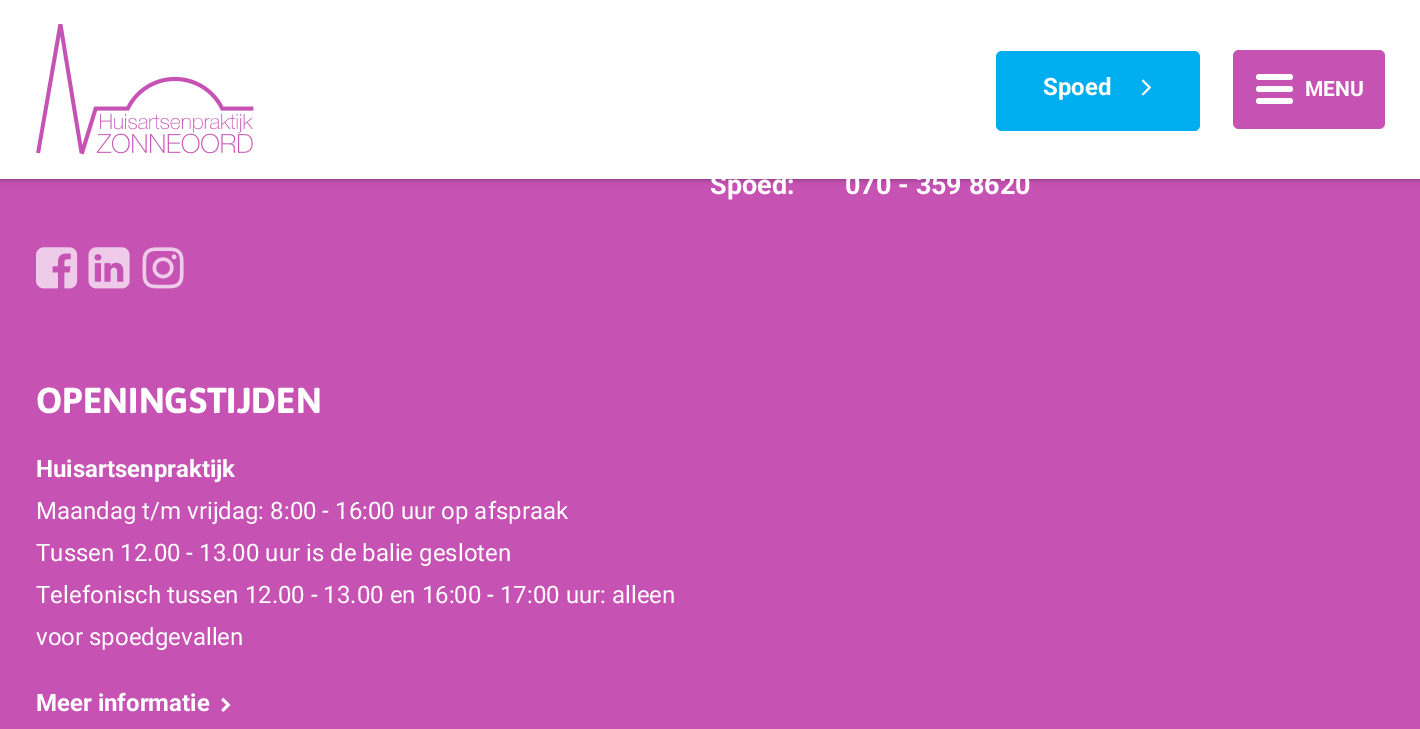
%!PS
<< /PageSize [1420 729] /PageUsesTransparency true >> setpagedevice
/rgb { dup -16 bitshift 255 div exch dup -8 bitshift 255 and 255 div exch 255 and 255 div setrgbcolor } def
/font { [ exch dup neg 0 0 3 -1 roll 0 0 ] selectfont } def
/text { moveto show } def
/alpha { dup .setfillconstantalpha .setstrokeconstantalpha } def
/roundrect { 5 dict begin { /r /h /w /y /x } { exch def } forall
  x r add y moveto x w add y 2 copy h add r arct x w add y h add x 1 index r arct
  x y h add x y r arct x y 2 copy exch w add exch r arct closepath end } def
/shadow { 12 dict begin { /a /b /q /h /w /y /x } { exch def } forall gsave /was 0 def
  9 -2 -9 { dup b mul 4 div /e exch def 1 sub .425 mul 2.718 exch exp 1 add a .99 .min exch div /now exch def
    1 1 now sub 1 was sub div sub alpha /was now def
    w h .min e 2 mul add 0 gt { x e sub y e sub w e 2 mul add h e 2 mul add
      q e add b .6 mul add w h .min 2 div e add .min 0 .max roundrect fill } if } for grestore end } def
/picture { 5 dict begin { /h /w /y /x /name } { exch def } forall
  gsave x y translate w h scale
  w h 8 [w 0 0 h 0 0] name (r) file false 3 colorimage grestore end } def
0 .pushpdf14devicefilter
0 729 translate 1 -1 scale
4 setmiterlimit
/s1 { /Roboto-Bold 24 font 16#FFFFFF rgb } def
/s2 { /Roboto-Bold 21 font 16#FFFFFF rgb } def
/s3 { /Roboto-Bold 27 font 16#FFFFFF rgb } def
/s4 { /Asap-Bold 36 font 16#FFFFFF rgb } def
/s5 { /Roboto-Regular 24 font 16#FFFFFF rgb } def
16#C652B4 rgb
0 0 1420 729 rectfill
16#000000 rgb
0 0 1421 179 0 3 0.4 shadow
16#FFFFFF rgb
0 0 1420 179 rectfill
(pic1.raw) 36 24 218 131 picture
16#00ADEE rgb
996 51 204 80 6 roundrect fill
s1
(Spoed) 1043 95 text
(pic2.raw) 1141 79 10 17 picture
16#C652B4 rgb
1233 50 152 79 6 roundrect fill
16#FFFFFF rgb
1256 86 37 6 3 roundrect fill
1256 74 37 6 3 roundrect fill
1256 98 37 6 3 roundrect fill
s2
(MENU) 1305 96 text
s3
(Spoed:) 710 194 text
(070 - 359 8620) 845 194 text
(pic3.raw) 36 247 42 42 picture
(pic4.raw) 88 247 42 42 picture
(pic5.raw) 142 247 42 42 picture
s4
(OPENINGSTIJDEN) 36 413 text
s1
(Huisartsenpraktijk) 36 477 text
s5
(Maandag t/m vrijdag: 8:00 - 16:00 uur op afspraak) 36 519 text
(Tussen 12.00 - 13.00 uur is de balie gesloten) 36 561 text
(Telefonisch tussen 12.00 - 13.00 en 16:00 - 17:00 uur: alleen) 36 603 text
(voor spoedgevallen) 36 645 text
s1
(Meer informatie) 36 711 text
(pic6.raw) 221 697 10 15 picture
.poppdf14devicefilter showpage
